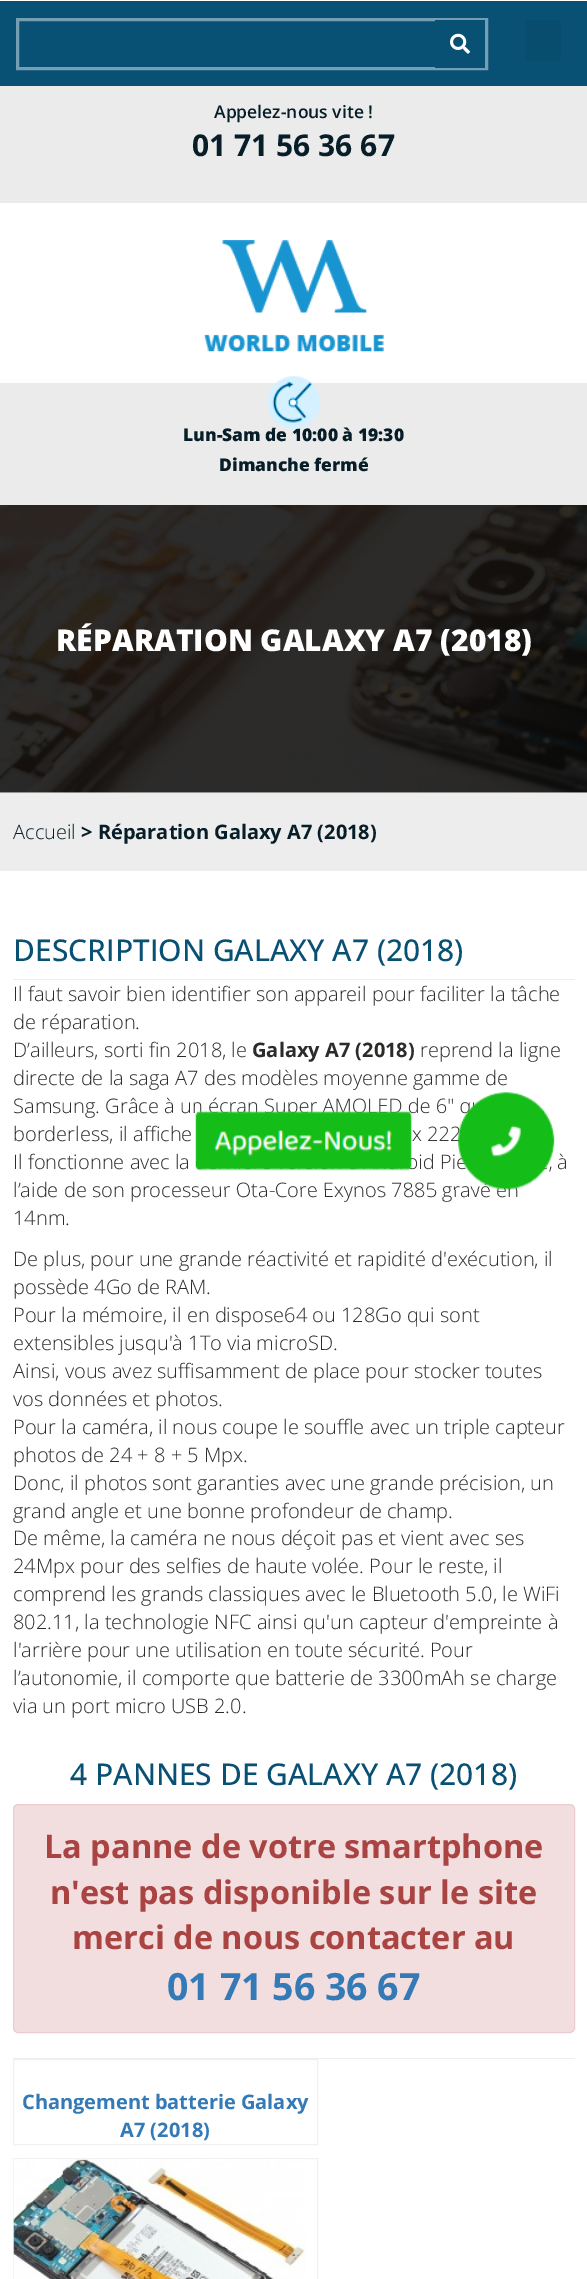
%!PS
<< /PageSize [587 2279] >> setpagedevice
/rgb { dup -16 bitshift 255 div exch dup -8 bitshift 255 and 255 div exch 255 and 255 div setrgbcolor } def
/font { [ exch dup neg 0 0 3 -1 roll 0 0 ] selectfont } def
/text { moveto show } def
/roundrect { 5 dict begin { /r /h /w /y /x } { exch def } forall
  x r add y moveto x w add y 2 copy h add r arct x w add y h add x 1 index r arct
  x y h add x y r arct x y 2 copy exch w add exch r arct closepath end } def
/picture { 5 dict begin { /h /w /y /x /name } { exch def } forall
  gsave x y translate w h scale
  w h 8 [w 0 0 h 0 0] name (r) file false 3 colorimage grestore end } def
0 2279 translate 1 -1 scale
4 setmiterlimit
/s1 { /OpenSans-SemiBold 17.5 font 16#071E29 rgb } def
/s2 { /OpenSans-Bold 30 font 16#071E29 rgb } def
/s3 { /OpenSans-ExtraBold 17.5 font 16#071E29 rgb } def
/s4 { /OpenSans-ExtraBold 30 font 16#FFFFFF rgb } def
/s5 { /OpenSans-Light 20 font 16#071E29 rgb } def
/s6 { /OpenSans-Bold 20 font 16#071E29 rgb } def
/s7 { /OpenSans-Medium 30 font 16#085074 rgb } def
/s8 { /OpenSans-Light 20 font 16#2B2B29 rgb } def
/s9 { /OpenSans-Bold 20 font 16#2B2B29 rgb } def
/s10 { /OpenSans-Bold 32.5 font 16#A94442 rgb } def
/s11 { /OpenSans-Bold 37.5 font 16#337AB7 rgb } def
/s12 { /OpenSans-Bold 20 font 16#337AB7 rgb } def
16#FFFFFF rgb
0 0 587 2279 rectfill
16#085074 rgb
0 1 587 85 rectfill
16#759EB2 rgb
3 setlinewidth
17.5 19.5 469 49 rectstroke
16#085074 rgb
435 20 50 48 rectfill
(pic1.raw) 450 33 20 21 picture
16#084C6E rgb
526 20 35 41 4 roundrect fill
16#EBEBEB rgb
0 86 587 117 rectfill
s1
(Appelez-nous vite !) 214 118 text
s2
(01 71 56 36 67) 192 156 text
(pic2.raw) 203 240 181 112 picture
16#EBEBEB rgb
0 383 587 122 rectfill
s3
(Lun-Sam de 10:00 à 19:30) 183 441 text
(pic3.raw) 267 376 53 53 picture
(Dimanche fermé) 219 471 text
(pic4.raw) 0 505 587 288 picture
s4
(RÉPARATION GALAXY A7 \(2018\)) 56 651 text
16#EDEDED rgb
0 793 587 78 rectfill
s5
(Accueil) 13 839 text
s6
(> Réparation Galaxy A7 \(2018\)) 81 839 text
s7
(DESCRIPTION GALAXY A7 \(2018\)) 13 961 text
16#EEEEEE rgb
13 979 562 1 rectfill
s8
(Il faut savoir bien identifier son appareil pour faciliter la tâche) 13 1001 text
(de réparation.) 13 1029 text
(D’ailleurs, sorti fin 2018, le) 13 1057 text
s9
(Galaxy A7 \(2018\)) 252 1057 text
s8
(reprend la ligne) 420 1057 text
(directe de la saga A7 des modèles moyenne gamme de) 13 1085 text
(Samsung. Grâce à un écran Super AMOLED de 6" qu) 13 1113 text
(borderless, il affiche) 13 1141 text
(x 222) 412 1141 text
(Il fonctionne avec la) 13 1169 text
(id Pi) 418 1169 text
(, à) 548 1169 text
(l’aide de son processeur Ota-Core Exynos 7885 gravé en) 13 1197 text
(14nm.) 13 1225 text
(De plus, pour une grande réactivité et rapidité d'exécution, il) 13 1266 text
(possède 4Go de RAM.) 13 1294 text
(Pour la mémoire, il en dispose64 ou 128Go qui sont) 13 1322 text
(extensibles jusqu'à 1To via microSD.) 13 1350 text
(Ainsi, vous avez suffisamment de place pour stocker toutes) 13 1378 text
(vos données et photos.) 13 1406 text
(Pour la caméra, il nous coupe le souffle avec un triple capteur) 13 1434 text
(photos de 24 + 8 + 5 Mpx.) 13 1462 text
(Donc, il photos sont garanties avec une grande précision, un) 13 1490 text
(grand angle et une bonne profondeur de champ.) 13 1518 text
(De même, la caméra ne nous déçoit pas et vient avec ses) 13 1545 text
(24Mpx pour des selfies de haute volée. Pour le reste, il) 13 1573 text
(comprend les grands classiques avec le Bluetooth 5.0, le WiFi) 13 1601 text
(802.11, la technologie NFC ainsi qu'un capteur d'empreinte à) 13 1629 text
(l'arrière pour une utilisation en toute sécurité. Pour) 13 1657 text
(l’autonomie, il comporte que batterie de 3300mAh se charge) 13 1685 text
(via un port micro USB 2.0.) 13 1713 text
s7
(4 PANNES DE GALAXY A7 \(2018\)) 70 1785 text
16#F2DEDE rgb
13.5 1804.5 561 228 4.5 roundrect gsave fill grestore
16#EBCCD1 rgb
1 setlinewidth
stroke
s10
(La panne de votre smartphone) 44 1858 text
(n'est pas disponible sur le site) 50 1904 text
(merci de nous contacter au) 72 1949 text
s11
(01 71 56 36 67) 167 2000 text
16#EEEEEE rgb
13 2058 562 1 rectfill
16#F1F1F1 rgb
13.5 2059.5 304 85 rectstroke
s12
(Changement batterie Galaxy) 22 2109 text
(A7 \(2018\)) 120 2137 text
16#F1F1F1 rgb
13.5 2158.5 304 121 rectstroke
(pic5.raw) 13 2159 293 120 picture
(pic6.raw) 195 1092 360 98 picture
showpage
